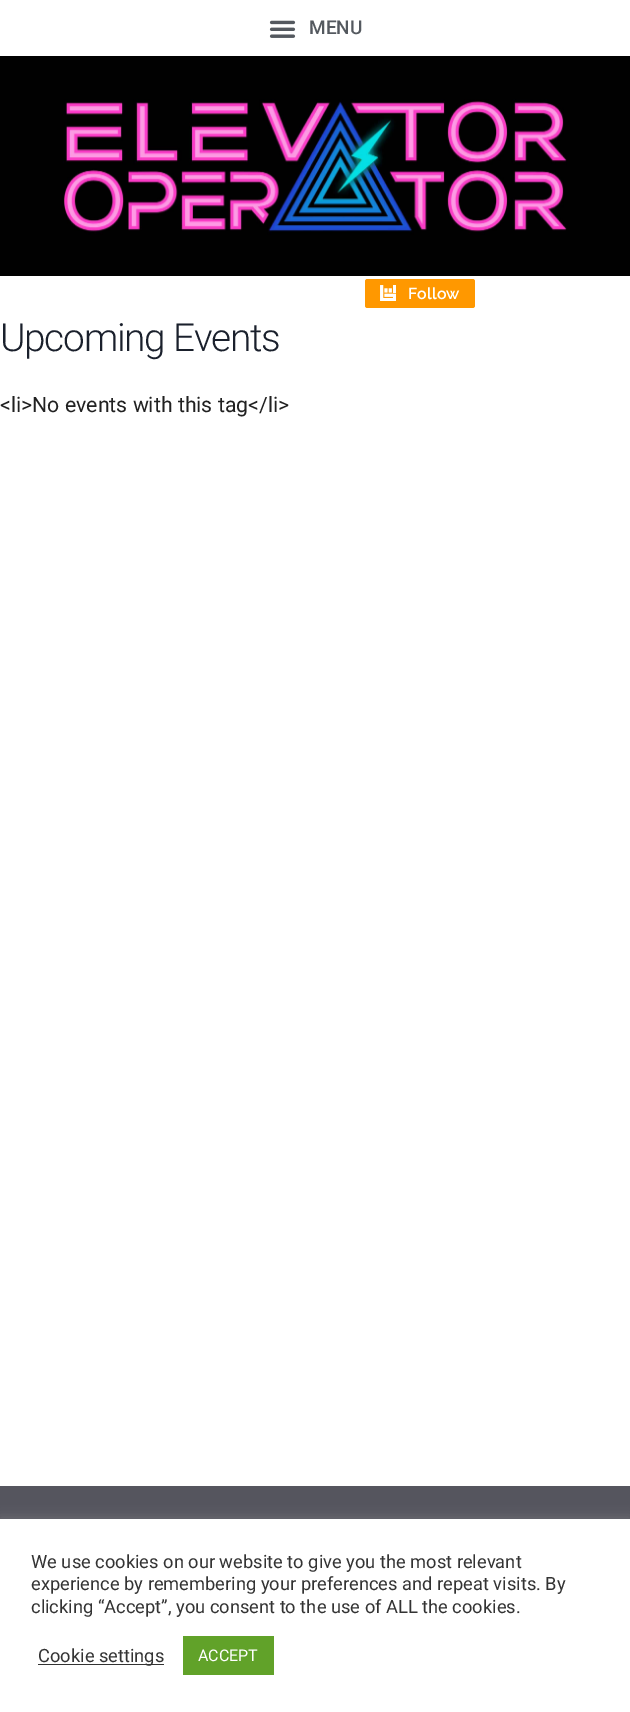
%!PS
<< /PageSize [630 1712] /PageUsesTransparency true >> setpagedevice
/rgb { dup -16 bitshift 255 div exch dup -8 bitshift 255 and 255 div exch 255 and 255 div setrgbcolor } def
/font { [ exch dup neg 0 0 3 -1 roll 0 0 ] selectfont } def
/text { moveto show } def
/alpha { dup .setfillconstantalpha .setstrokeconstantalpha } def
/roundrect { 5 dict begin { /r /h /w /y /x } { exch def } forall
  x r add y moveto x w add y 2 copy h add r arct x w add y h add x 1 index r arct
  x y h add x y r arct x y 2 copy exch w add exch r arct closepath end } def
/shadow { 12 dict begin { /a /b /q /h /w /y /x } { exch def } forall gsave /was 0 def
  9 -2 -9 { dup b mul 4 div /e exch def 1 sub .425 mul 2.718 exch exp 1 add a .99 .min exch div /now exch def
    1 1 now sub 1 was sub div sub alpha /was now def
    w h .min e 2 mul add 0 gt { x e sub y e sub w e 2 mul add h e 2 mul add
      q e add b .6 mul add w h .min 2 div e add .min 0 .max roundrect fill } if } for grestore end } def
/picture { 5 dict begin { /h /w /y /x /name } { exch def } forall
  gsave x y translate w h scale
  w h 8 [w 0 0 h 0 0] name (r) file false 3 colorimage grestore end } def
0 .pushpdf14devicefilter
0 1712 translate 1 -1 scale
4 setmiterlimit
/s1 { /Roboto-Medium 19 font 16#54595F rgb } def
/s2 { /Raleway-SemiBold 16 font 16#FFFFFF rgb } def
/s3 { /Roboto-Regular 21.25 font 16#212121 rgb } def
/s4 { /Roboto-Regular 18.3 font 16#333333 rgb } def
/s5 { /Roboto-Regular 16 font 16#FFFFFF rgb } def
16#FFFFFF rgb
0 0 630 1712 rectfill
(pic1.raw) 269 20 27 18 picture
s1
(MENU) 309 34 text
(pic2.raw) 0 56 630 220 picture
16#FF9800 rgb
365 279 110 29 2.5 roundrect fill
(pic3.raw) 380 285 16 16 picture
s2
(Follow) 408 299 text
/Roboto-Light 38.75 font
16#1A202C rgb
0 351 moveto -1.25 0 (Upcoming Events) ashow
s3
(<li>No events with this tag</li>) 0 412 text
16#55555E rgb
0 1486 630 33 rectfill
16#ACABAB rgb
0 1518 630 193 0 6 0.3 shadow
16#FFFFFF rgb
0 1519 630 193 rectfill
s4
(We use cookies on our website to give you the most relevant) 31 1568 text
(experience by remembering your preferences and repeat visits. By) 31 1590 text
(clicking “Accept”, you consent to the use of ALL the cookies.) 31 1613 text
38 1664 126 1 rectfill
(Cookie settings) 38 1662 text
16#61A229 rgb
183 1636 91 39 rectfill
s5
(ACCEPT) 198 1661 text
.poppdf14devicefilter showpage
